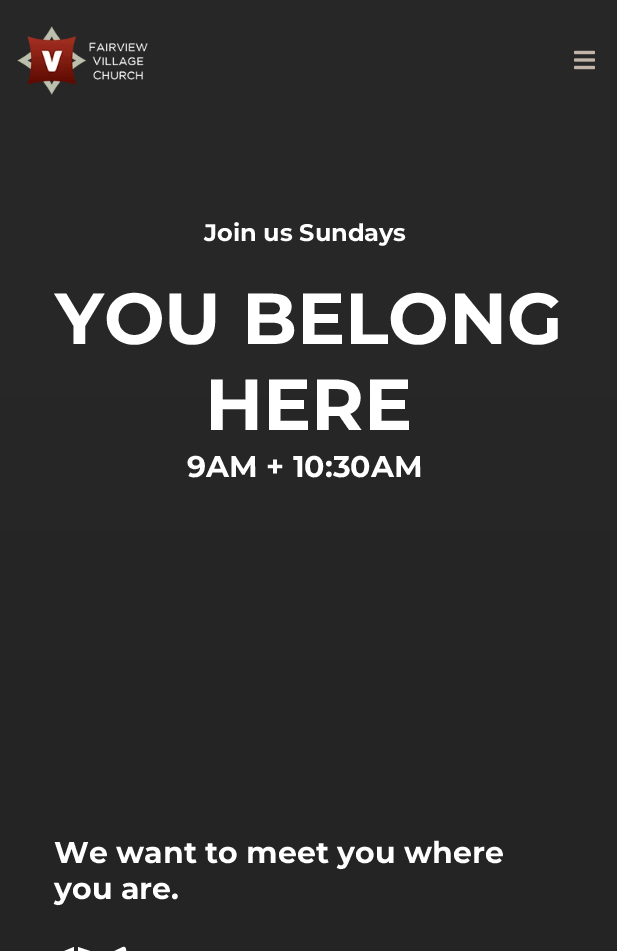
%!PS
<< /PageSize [617 951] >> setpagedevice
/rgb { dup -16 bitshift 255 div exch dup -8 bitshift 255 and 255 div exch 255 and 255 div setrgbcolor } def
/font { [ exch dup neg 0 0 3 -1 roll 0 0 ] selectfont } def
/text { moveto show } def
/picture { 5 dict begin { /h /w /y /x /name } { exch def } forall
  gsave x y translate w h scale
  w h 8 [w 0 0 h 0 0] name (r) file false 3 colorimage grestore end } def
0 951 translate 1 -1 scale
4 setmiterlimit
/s1 { /Montserrat-Bold 24 font 16#FFFFFF rgb } def
/s2 { /Montserrat-Bold 72 font 16#FFFFFF rgb } def
/s3 { /Montserrat-Bold 30 font 16#FFFFFF rgb } def
16#FFFFFF rgb
0 0 617 951 rectfill
16#272727 rgb
0 0 617 397 rectfill
(pic1.raw) 17 26 131 69 picture
(pic2.raw) 574 50 21 20 picture
s1
(Join us Sundays) 204 241 text
s2
(YOU BELONG) 55 344 text
gsave 0 397 moveto 617 397 lineto 617 795 lineto 0 795 lineto closepath clip newpath
<< /ShadingType 2 /ColorSpace /DeviceRGB /Coords [309 397 309 795] /Extend [true true] /Function << /FunctionType 2 /Domain [0 1] /C0 [0.153 0.153 0.153] /C1 [0.141 0.141 0.141] /N 1 >> >> shfill grestore
(HERE) 205 430 text
s3
(9AM + 10:30AM) 187 477 text
gsave 0 795 moveto 617 795 lineto 617 951 lineto 0 951 lineto closepath clip newpath
<< /ShadingType 2 /ColorSpace /DeviceRGB /Coords [308 795 309 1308] /Extend [true true] /Function << /FunctionType 2 /Domain [0 1] /C0 [0.141 0.141 0.141] /C1 [0.149 0.149 0.149] /N 1 >> >> shfill grestore
(We want to meet you where) 54 863 text
(you are.) 54 899 text
54 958 moveto 54 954 60 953 62 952 curveto 74 947 lineto 74 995 lineto 60 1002 lineto 52 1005 54 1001 54 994 curveto closepath 78 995 moveto 78 947 lineto 102 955 lineto 102 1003 lineto closepath 123 947 moveto 127 946 126 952 126 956 curveto 126 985 lineto 126 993 128 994 121 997 curveto 106 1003 lineto 106 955 lineto closepath fill
showpage
